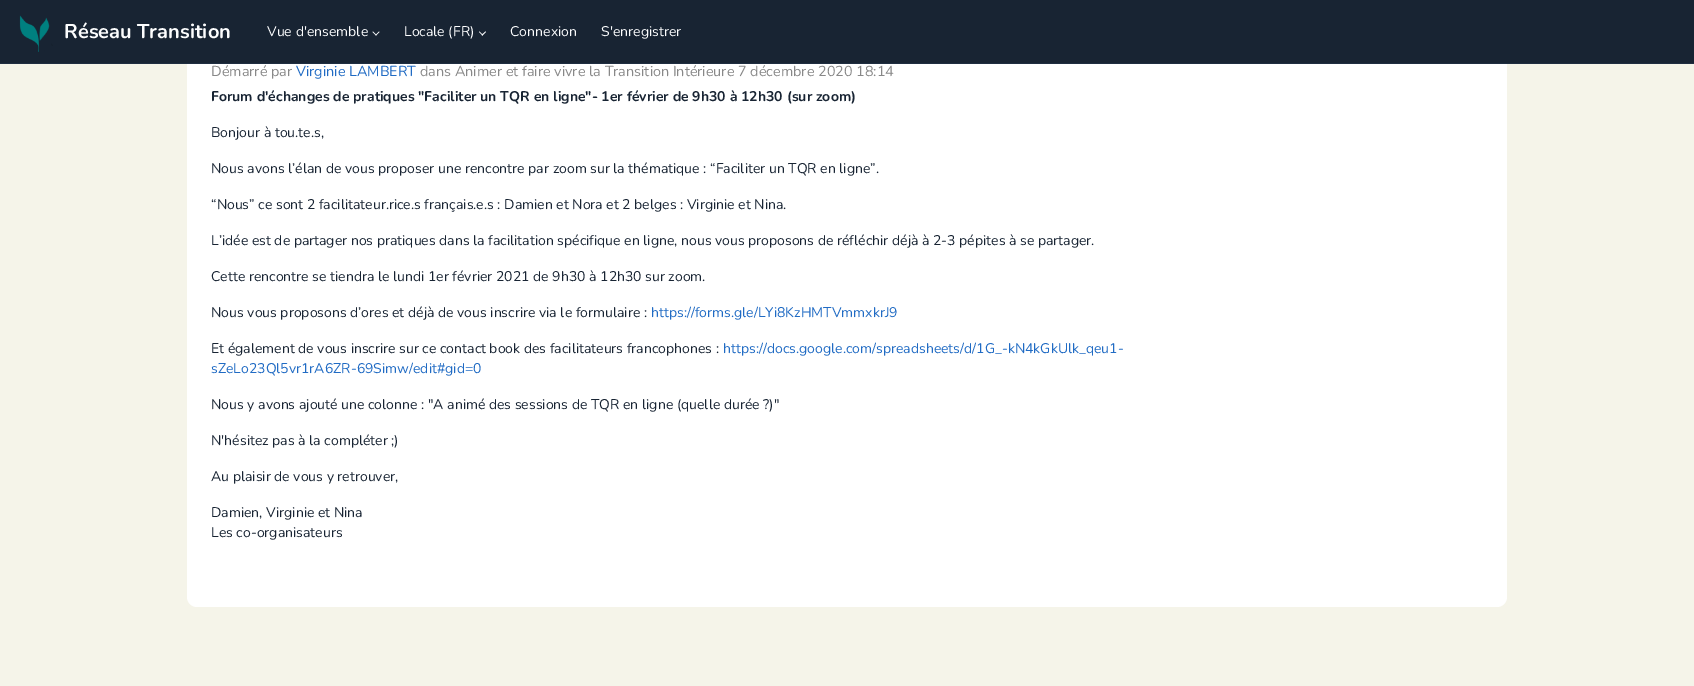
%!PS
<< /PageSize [1694 686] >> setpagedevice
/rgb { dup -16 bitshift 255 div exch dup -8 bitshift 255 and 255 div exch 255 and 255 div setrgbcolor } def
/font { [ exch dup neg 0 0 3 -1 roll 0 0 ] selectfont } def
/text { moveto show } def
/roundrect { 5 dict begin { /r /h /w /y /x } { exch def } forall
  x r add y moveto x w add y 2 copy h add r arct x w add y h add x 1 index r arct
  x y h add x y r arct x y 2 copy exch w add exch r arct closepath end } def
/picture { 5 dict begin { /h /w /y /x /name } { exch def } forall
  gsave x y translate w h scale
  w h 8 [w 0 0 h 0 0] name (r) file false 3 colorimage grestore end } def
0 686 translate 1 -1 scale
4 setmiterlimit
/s1 { /Nunito-Bold 20 font 16#FCFDFE rgb } def
/s2 { /Nunito-Regular 14 font 16#FCFDFE rgb } def
/s3 { /Nunito-Regular 14.4 font 16#888888 rgb } def
/s4 { /Nunito-Regular 14.4 font 16#206BC4 rgb } def
/s5 { /Nunito-Bold 14 font 16#182433 rgb } def
/s6 { /Nunito-Regular 14 font 16#182433 rgb } def
/s7 { /Nunito-Regular 14 font 16#206BC4 rgb } def
16#F5F4E9 rgb
0 0 1694 686 rectfill
16#FFFFFF rgb
187 -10 1320 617 10 roundrect fill
16#182433 rgb
0 0 1694 63 rectfill
16#1F2E41 rgb
0 63 1694 1 rectfill
(pic1.raw) 19 15 34 37 picture
s1
(Réseau Transition) 64 38 text
s2
(Vue d'ensemble) 267 36 text
375.5 35 moveto 379 31.5 lineto 379.5 32 lineto 376 35.5 lineto closepath fill
372.5 32 moveto 373 31.5 lineto 376.5 35 lineto 376 35.5 lineto closepath fill
(Locale \(FR\)) 404 36 text
481.5 35 moveto 485.5 31.5 lineto 486 32 lineto 482.5 35.5 lineto closepath fill
479 32 moveto 479.5 31.5 lineto 483 35 lineto 482.5 35.5 lineto closepath fill
(Connexion) 510 36 text
(S'enregistrer) 601 36 text
s3
(Démarré par) 211 76 text
s4
(Virginie LAMBERT) 296 76 text
s3
(dans Animer et faire vivre la Transition Intérieure 7 décembre 2020 18:14) 420 76 text
s5
(Forum d'échanges de pratiques "Faciliter un TQR en ligne"- 1er février de 9h30 à 12h30 \(sur zoom\)) 211 101 text
s6
(Bonjour à tou.te.s,) 211 137 text
(Nous avons l’élan de vous proposer une rencontre par zoom sur la thématique : “Faciliter un TQR en ligne”.) 211 173 text
(“Nous” ce sont 2 facilitateur.rice.s français.e.s : Damien et Nora et 2 belges : Virginie et Nina.) 211 209 text
(L’idée est de partager nos pratiques dans la facilitation spécifique en ligne, nous vous proposons de réfléchir déjà à 2-3 pépites à se partager.) 211 245 text
(Cette rencontre se tiendra le lundi 1er février 2021 de 9h30 à 12h30 sur zoom.) 211 281 text
(Nous vous proposons d’ores et déjà de vous inscrire via le formulaire :) 211 317 text
s7
(https://forms.gle/LYi8KzHMTVmmxkrJ9) 651 317 text
s6
(Et également de vous inscrire sur ce contact book des facilitateurs francophones :) 211 353 text
s7
(https://docs.google.com/spreadsheets/d/1G_-kN4kGkUlk_qeu1-) 723 353 text
(sZeLo23Ql5vr1rA6ZR-69Simw/edit#gid=0) 211 373 text
s6
(Nous y avons ajouté une colonne : "A animé des sessions de TQR en ligne \(quelle durée ?\)") 211 409 text
(N'hésitez pas à la compléter ;\)) 211 445 text
(Au plaisir de vous y retrouver,) 211 481 text
(Damien, Virginie et Nina) 211 517 text
(Les co-organisateurs) 211 537 text
showpage
